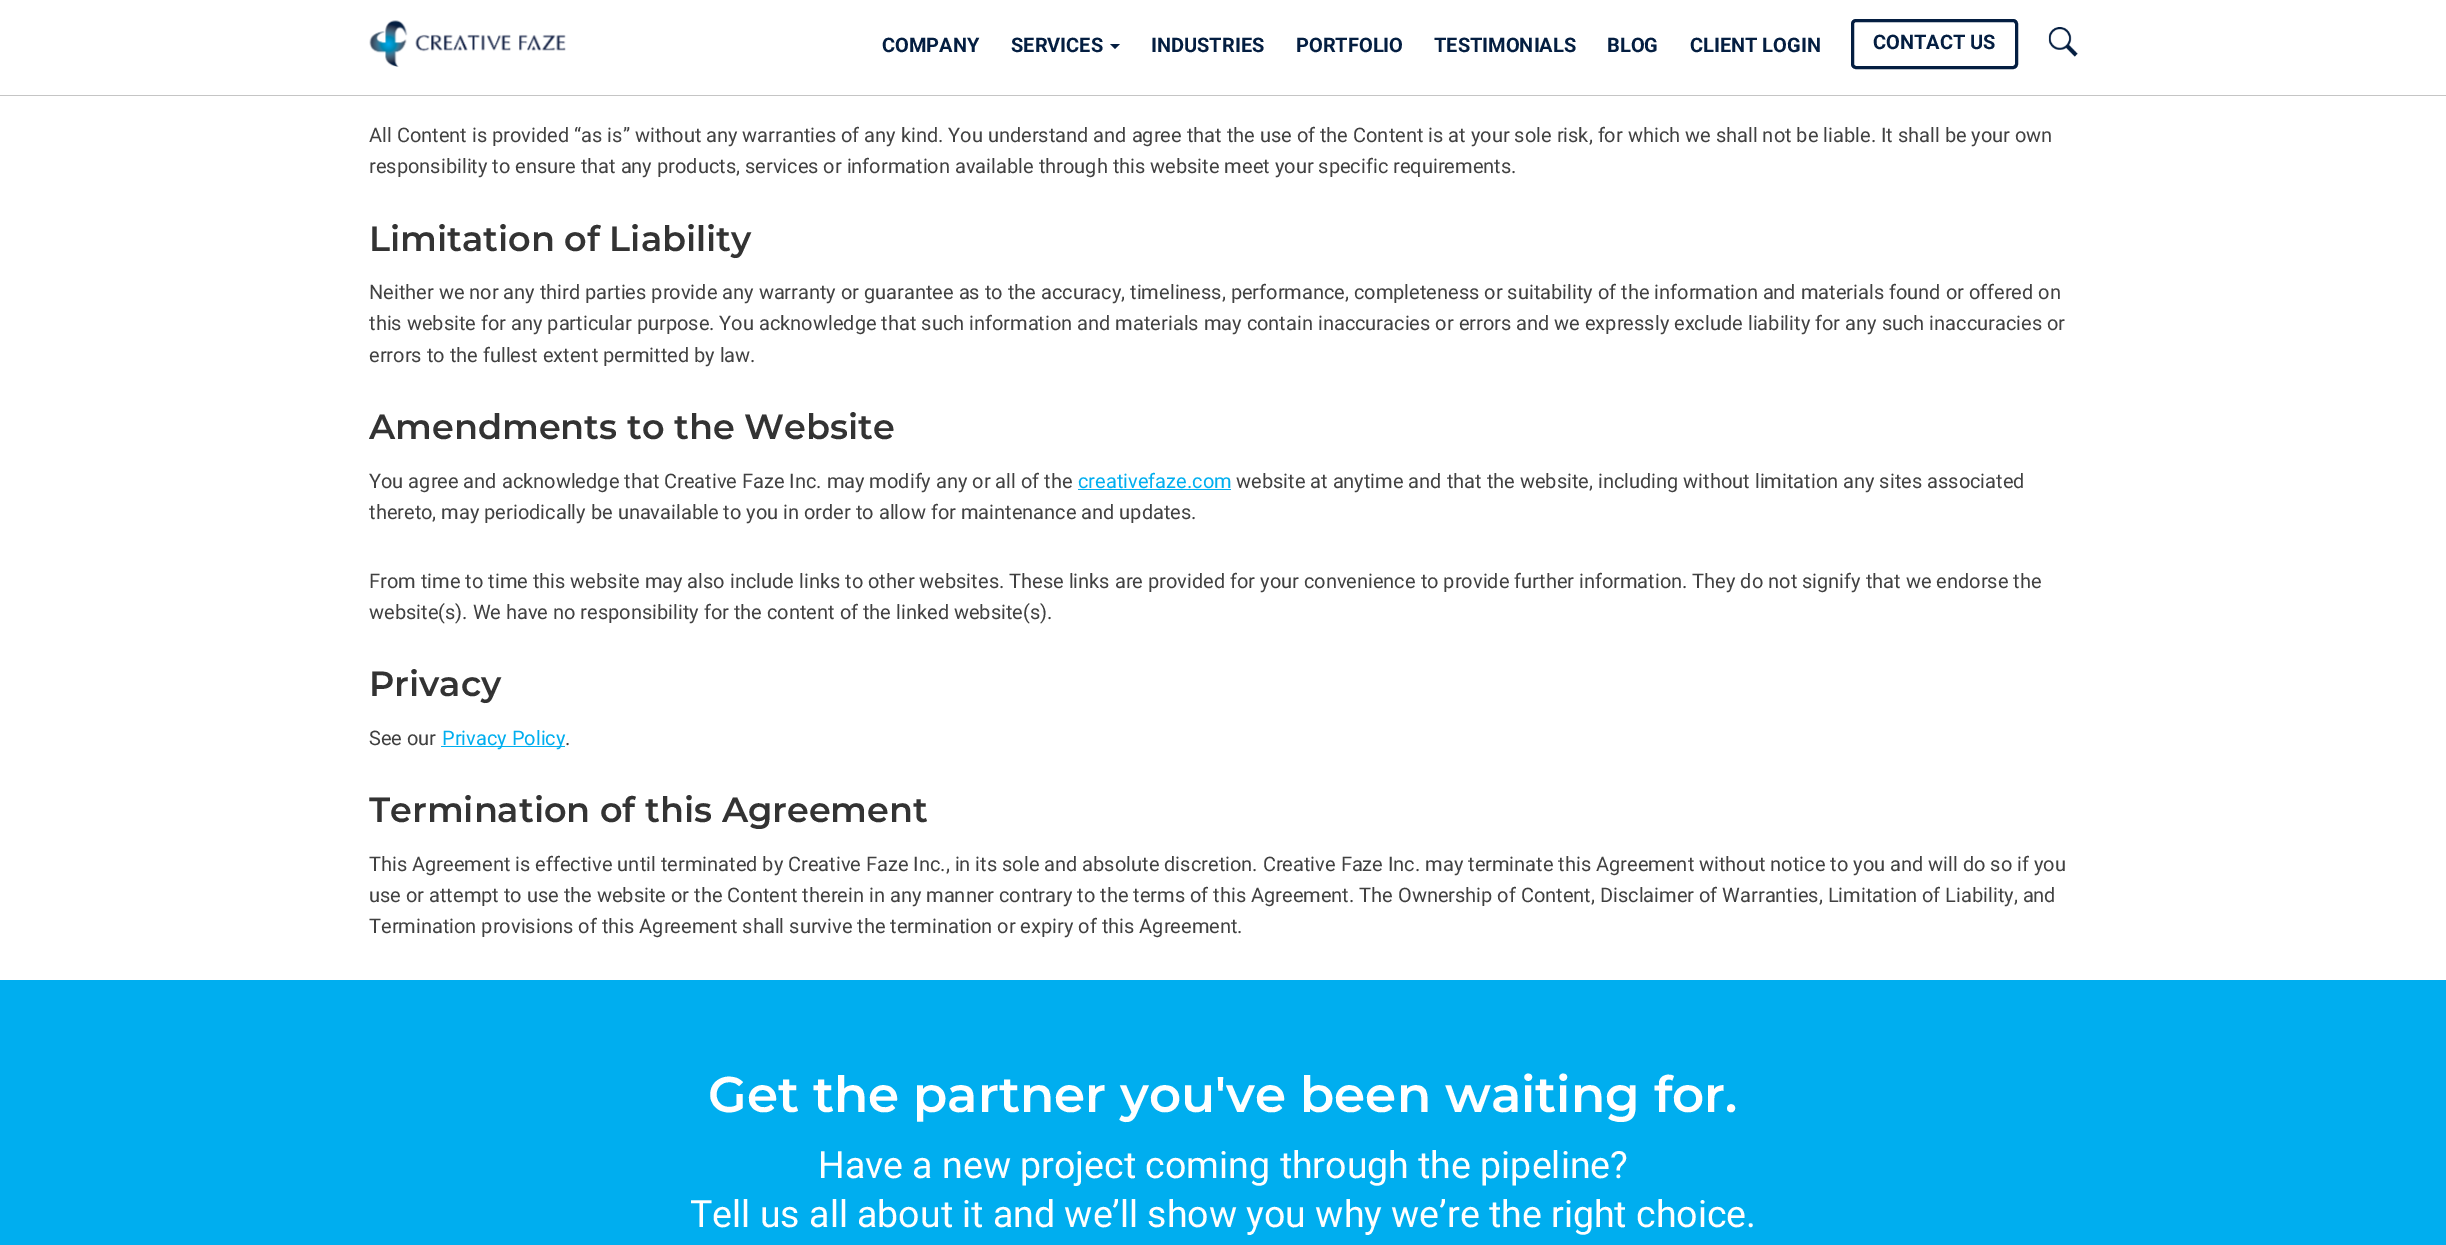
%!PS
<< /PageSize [2446 1245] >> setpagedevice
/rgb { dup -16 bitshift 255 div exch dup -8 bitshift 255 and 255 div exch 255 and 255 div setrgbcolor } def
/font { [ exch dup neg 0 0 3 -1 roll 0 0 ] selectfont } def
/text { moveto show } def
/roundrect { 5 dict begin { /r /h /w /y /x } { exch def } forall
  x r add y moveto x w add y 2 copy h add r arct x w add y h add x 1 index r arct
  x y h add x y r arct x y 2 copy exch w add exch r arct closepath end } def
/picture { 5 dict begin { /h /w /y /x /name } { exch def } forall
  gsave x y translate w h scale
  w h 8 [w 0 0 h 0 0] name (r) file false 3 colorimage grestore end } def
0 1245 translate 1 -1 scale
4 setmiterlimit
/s1 { /Roboto-Bold 20 font 16#041E41 rgb } def
/s2 { /Roboto-Regular 20 font 16#414141 rgb } def
/s3 { /Montserrat-SemiBold 35 font 16#333333 rgb } def
/s4 { /Roboto-Regular 20 font 16#00AEEF rgb } def
/s5 { /Montserrat-SemiBold 50 font 16#FFFFFF rgb } def
/s6 { /Roboto-Regular 37.5 font 16#FFFFFF rgb } def
16#FFFFFF rgb
0 0 2446 1245 rectfill
16#C5C5C5 rgb
0 95 2446 1 rectfill
(pic1.raw) 369 20 197 47 picture
s1
(COMPANY) 882 52 text
(SERVICES) 1011 52 text
1110 44 moveto 1120 44 lineto 1115 49 lineto closepath fill
(INDUSTRIES) 1151 52 text
(PORTFOLIO) 1296 52 text
(TESTIMONIALS) 1434 52 text
(BLOG) 1607 52 text
(CLIENT LOGIN) 1690 52 text
3 setlinewidth
1852.5 20.5 164 47 3.5 roundrect stroke
(CONTACT US) 1873 49 text
(pic2.raw) 2048 27 30 30 picture
s2
(All Content is provided “as is” without any warranties of any kind. You understand and agree that the use of the Content is at your sole risk, for which we shall not be liable. It shall be your own) 369 142 text
(responsibility to ensure that any products, services or information available through this website meet your specific requirements.) 369 173 text
s3
(Limitation of Liability) 369 251 text
s2
(Neither we nor any third parties provide any warranty or guarantee as to the accuracy, timeliness, performance, completeness or suitability of the information and materials found or offered on) 369 299 text
(this website for any particular purpose. You acknowledge that such information and materials may contain inaccuracies or errors and we expressly exclude liability for any such inaccuracies or) 369 330 text
(errors to the fullest extent permitted by law.) 369 362 text
s3
(Amendments to the Website) 369 439 text
s2
(You agree and acknowledge that Creative Faze Inc. may modify any or all of the) 369 488 text
s4
(creativefaze.com) 1078 488 text
1078 489 153 1 rectfill
s2
(website at anytime and that the website, including without limitation any sites associated) 1236 488 text
(thereto, may periodically be unavailable to you in order to allow for maintenance and updates.) 369 519 text
(From time to time this website may also include links to other websites. These links are provided for your convenience to provide further information. They do not signify that we endorse the) 369 588 text
(website\(s\). We have no responsibility for the content of the linked website\(s\).) 369 619 text
s3
(Privacy) 369 696 text
s2
(See our) 369 745 text
16#00AEEF rgb
441 746 124 1 rectfill
(Privacy Policy) 442 745 text
s2
(.) 565 745 text
s3
(Termination of this Agreement) 369 822 text
s2
(This Agreement is effective until terminated by Creative Faze Inc., in its sole and absolute discretion. Creative Faze Inc. may terminate this Agreement without notice to you and will do so if you) 369 871 text
(use or attempt to use the website or the Content therein in any manner contrary to the terms of this Agreement. The Ownership of Content, Disclaimer of Warranties, Limitation of Liability, and) 369 902 text
(Termination provisions of this Agreement shall survive the termination or expiry of this Agreement.) 369 933 text
16#00AEEF rgb
0 980 2446 265 rectfill
s5
(Get the partner you've been waiting for.) 708 1112 text
s6
(Have a new project coming through the pipeline?) 818 1178 text
(Tell us all about it and we’ll show you why we’re the right choice.) 690 1227 text
showpage
